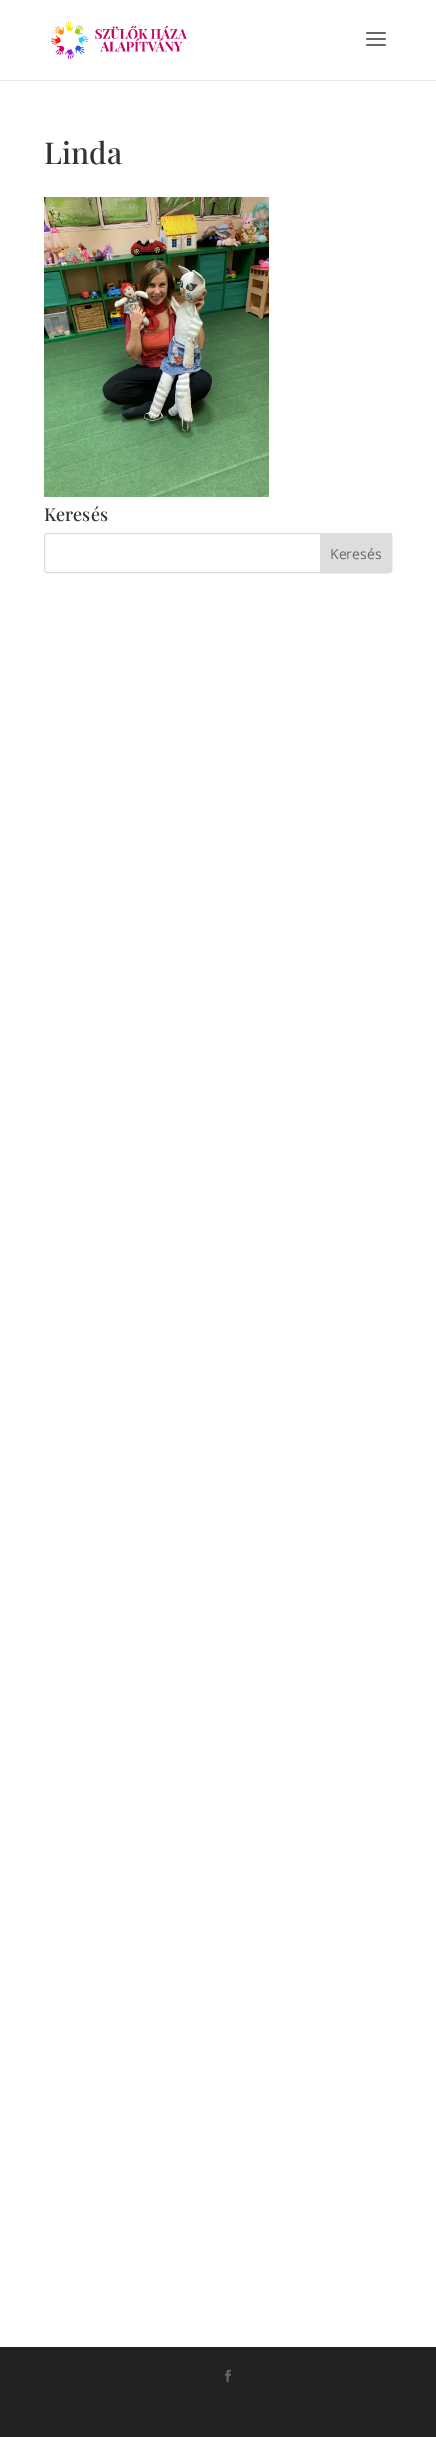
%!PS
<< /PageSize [436 2437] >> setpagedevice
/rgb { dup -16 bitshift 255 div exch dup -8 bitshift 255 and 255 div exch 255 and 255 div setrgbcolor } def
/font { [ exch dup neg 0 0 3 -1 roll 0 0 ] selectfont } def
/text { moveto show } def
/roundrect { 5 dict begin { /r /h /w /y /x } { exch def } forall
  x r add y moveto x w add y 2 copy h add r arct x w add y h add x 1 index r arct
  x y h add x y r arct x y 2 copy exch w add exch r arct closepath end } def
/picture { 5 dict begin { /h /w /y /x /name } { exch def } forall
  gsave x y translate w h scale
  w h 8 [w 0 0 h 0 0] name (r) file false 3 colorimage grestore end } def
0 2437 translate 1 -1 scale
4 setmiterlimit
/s1 { /PlayfairDisplay-Medium 30 font 16#333333 rgb } def
/s2 { /PlayfairDisplay-Medium 18 font 16#333333 rgb } def
/s3 { /OpenSans-Regular 14 font 16#666666 rgb } def
16#FFFFFF rgb
0 0 436 2437 rectfill
16#E6E6E6 rgb
0 80 436 1 rectfill
(pic1.raw) 51 21 136 38 picture
(pic2.raw) 366 32 20 14 picture
s1
(Linda) 44 164 text
(pic3.raw) 44 197 225 300 picture
s2
(Keresés) 44 521 text
16#DDDDDD rgb
44.5 533.5 347 39 2.5 roundrect stroke
320.5 533.5 moveto 389 533.5 lineto 390.5 533.5 391.5 534.5 391.5 536 curveto 391.5 570 lineto 391.5 571.5 390.5 572.5 389 572.5 curveto 320.5 572.5 lineto closepath gsave fill grestore
stroke
s3
(Keresés) 330 559 text
16#222222 rgb
0 2347 436 90 rectfill
(pic4.raw) 225 2369 6 13 picture
showpage
